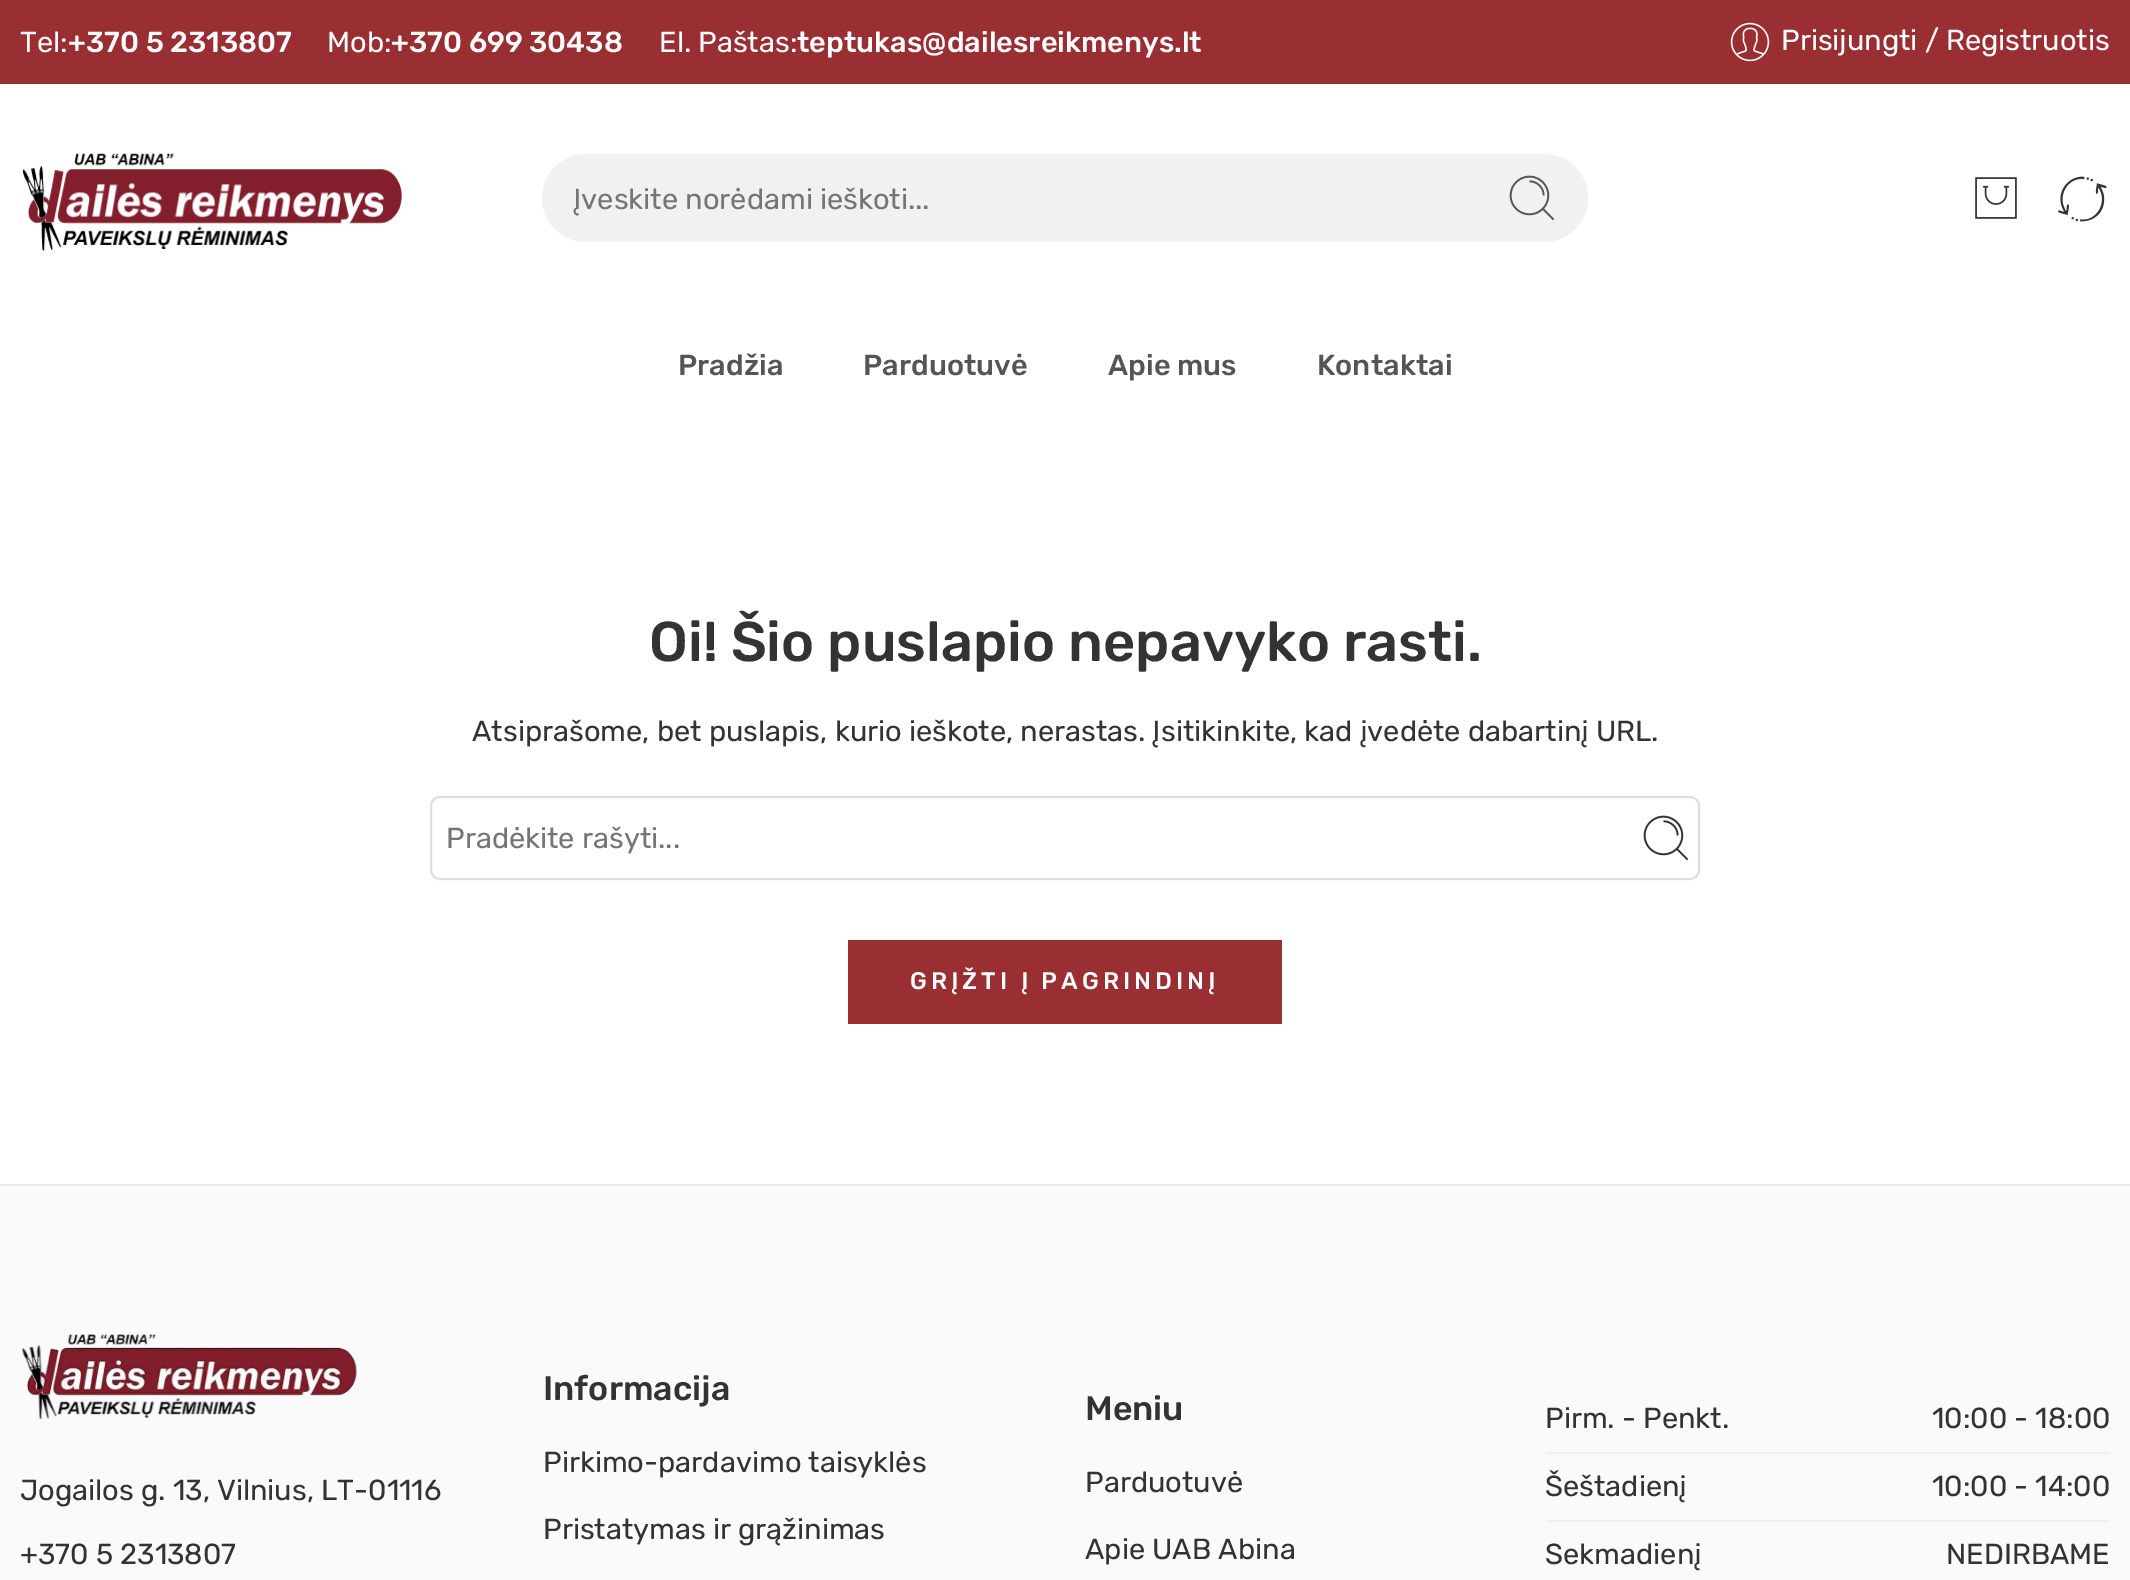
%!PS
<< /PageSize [2130 1580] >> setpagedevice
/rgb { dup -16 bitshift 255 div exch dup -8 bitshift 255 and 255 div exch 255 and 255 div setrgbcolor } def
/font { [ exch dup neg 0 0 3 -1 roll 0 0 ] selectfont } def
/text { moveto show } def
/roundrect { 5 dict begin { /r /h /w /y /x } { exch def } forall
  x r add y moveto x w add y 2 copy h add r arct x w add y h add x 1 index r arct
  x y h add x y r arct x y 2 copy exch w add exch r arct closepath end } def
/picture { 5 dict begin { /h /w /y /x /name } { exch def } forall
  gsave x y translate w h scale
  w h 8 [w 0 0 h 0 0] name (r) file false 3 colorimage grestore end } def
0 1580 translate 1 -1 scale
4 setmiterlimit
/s1 { /Rubik-Regular 29 font 16#FFFFFF rgb } def
/s2 { /Rubik-Medium 29 font 16#FFFFFF rgb } def
/s3 { /Rubik-Regular 29 font 16#757575 rgb } def
/s4 { /Rubik-Medium 29 font 16#555555 rgb } def
/s5 { /Rubik-Medium 56 font 16#333333 rgb } def
/s6 { /Rubik-Regular 29 font 16#333333 rgb } def
/s7 { /Rubik-Medium 34 font 16#333333 rgb } def
16#FFFFFF rgb
0 0 2130 1580 rectfill
16#9A2F33 rgb
0 0 2130 84 rectfill
s1
(Tel:) 20 52 text
s2
(+370 5 2313807) 68 52 text
s1
(Mob:) 327 52 text
s2
(+370 699 30438) 391 52 text
s1
(El. Paštas:) 659 52 text
s2
(teptukas@dailesreikmenys.lt) 797 52 text
(pic1.raw) 1730 22 40 40 picture
s1
(Prisijungti / Registruotis) 1781 50 text
(pic2.raw) 22 153 380 98 picture
16#F1F1F1 rgb
542 154 1046 88 44 roundrect fill
s3
(Įveskite norėdami ieškoti...) 573 209 text
(pic3.raw) 1509 175 46 46 picture
(pic4.raw) 1975 177 42 42 picture
(pic5.raw) 2058 176 49 46 picture
s4
(Pradžia) 678 375 text
(Parduotuvė) 863 375 text
(Apie mus) 1108 375 text
(Kontaktai) 1317 375 text
s5
(Oi! Šio puslapio nepavyko rasti.) 649 661 text
s6
(Atsiprašome, bet puslapis, kurio ieškote, nerastas. Įsitikinkite, kad įvedėte dabartinį URL.) 472 741 text
16#DEDEDE rgb
2 setlinewidth
431 797 1268 82 9 roundrect stroke
s3
(Pradėkite rašyti...) 446 848 text
(pic6.raw) 1643 815 46 46 picture
16#9A2F33 rgb
848 940 434 84 rectfill
/Rubik-Medium 24 font
16#FFFFFF rgb
910 989 moveto 4 0 (GRĮŽTI Į PAGRINDINĮ) ashow
16#FAFAFA rgb
0 1186 2130 394 rectfill
16#ECECEC rgb
0 1184 2130 2 rectfill
(pic7.raw) 21 1334 336 86 picture
s6
(Jogailos g. 13, Vilnius, LT-01116) 20 1500 text
(+370 5 2313807) 20 1564 text
s7
(Informacija) 543 1400 text
s6
(Pirkimo-pardavimo taisyklės) 543 1472 text
(Pristatymas ir grąžinimas) 543 1539 text
s7
(Meniu) 1085 1420 text
s6
(Parduotuvė) 1085 1492 text
(Apie UAB Abina) 1085 1559 text
16#EFEFEF rgb
1546 1452 564 2 rectfill
s6
(Pirm. - Penkt.) 1545 1428 text
(10:00 - 18:00) 1932 1428 text
16#EFEFEF rgb
1546 1520 564 2 rectfill
s6
(Šeštadienį) 1545 1496 text
(10:00 - 14:00) 1932 1496 text
(Sekmadienį) 1545 1564 text
(NEDIRBAME) 1946 1564 text
showpage
